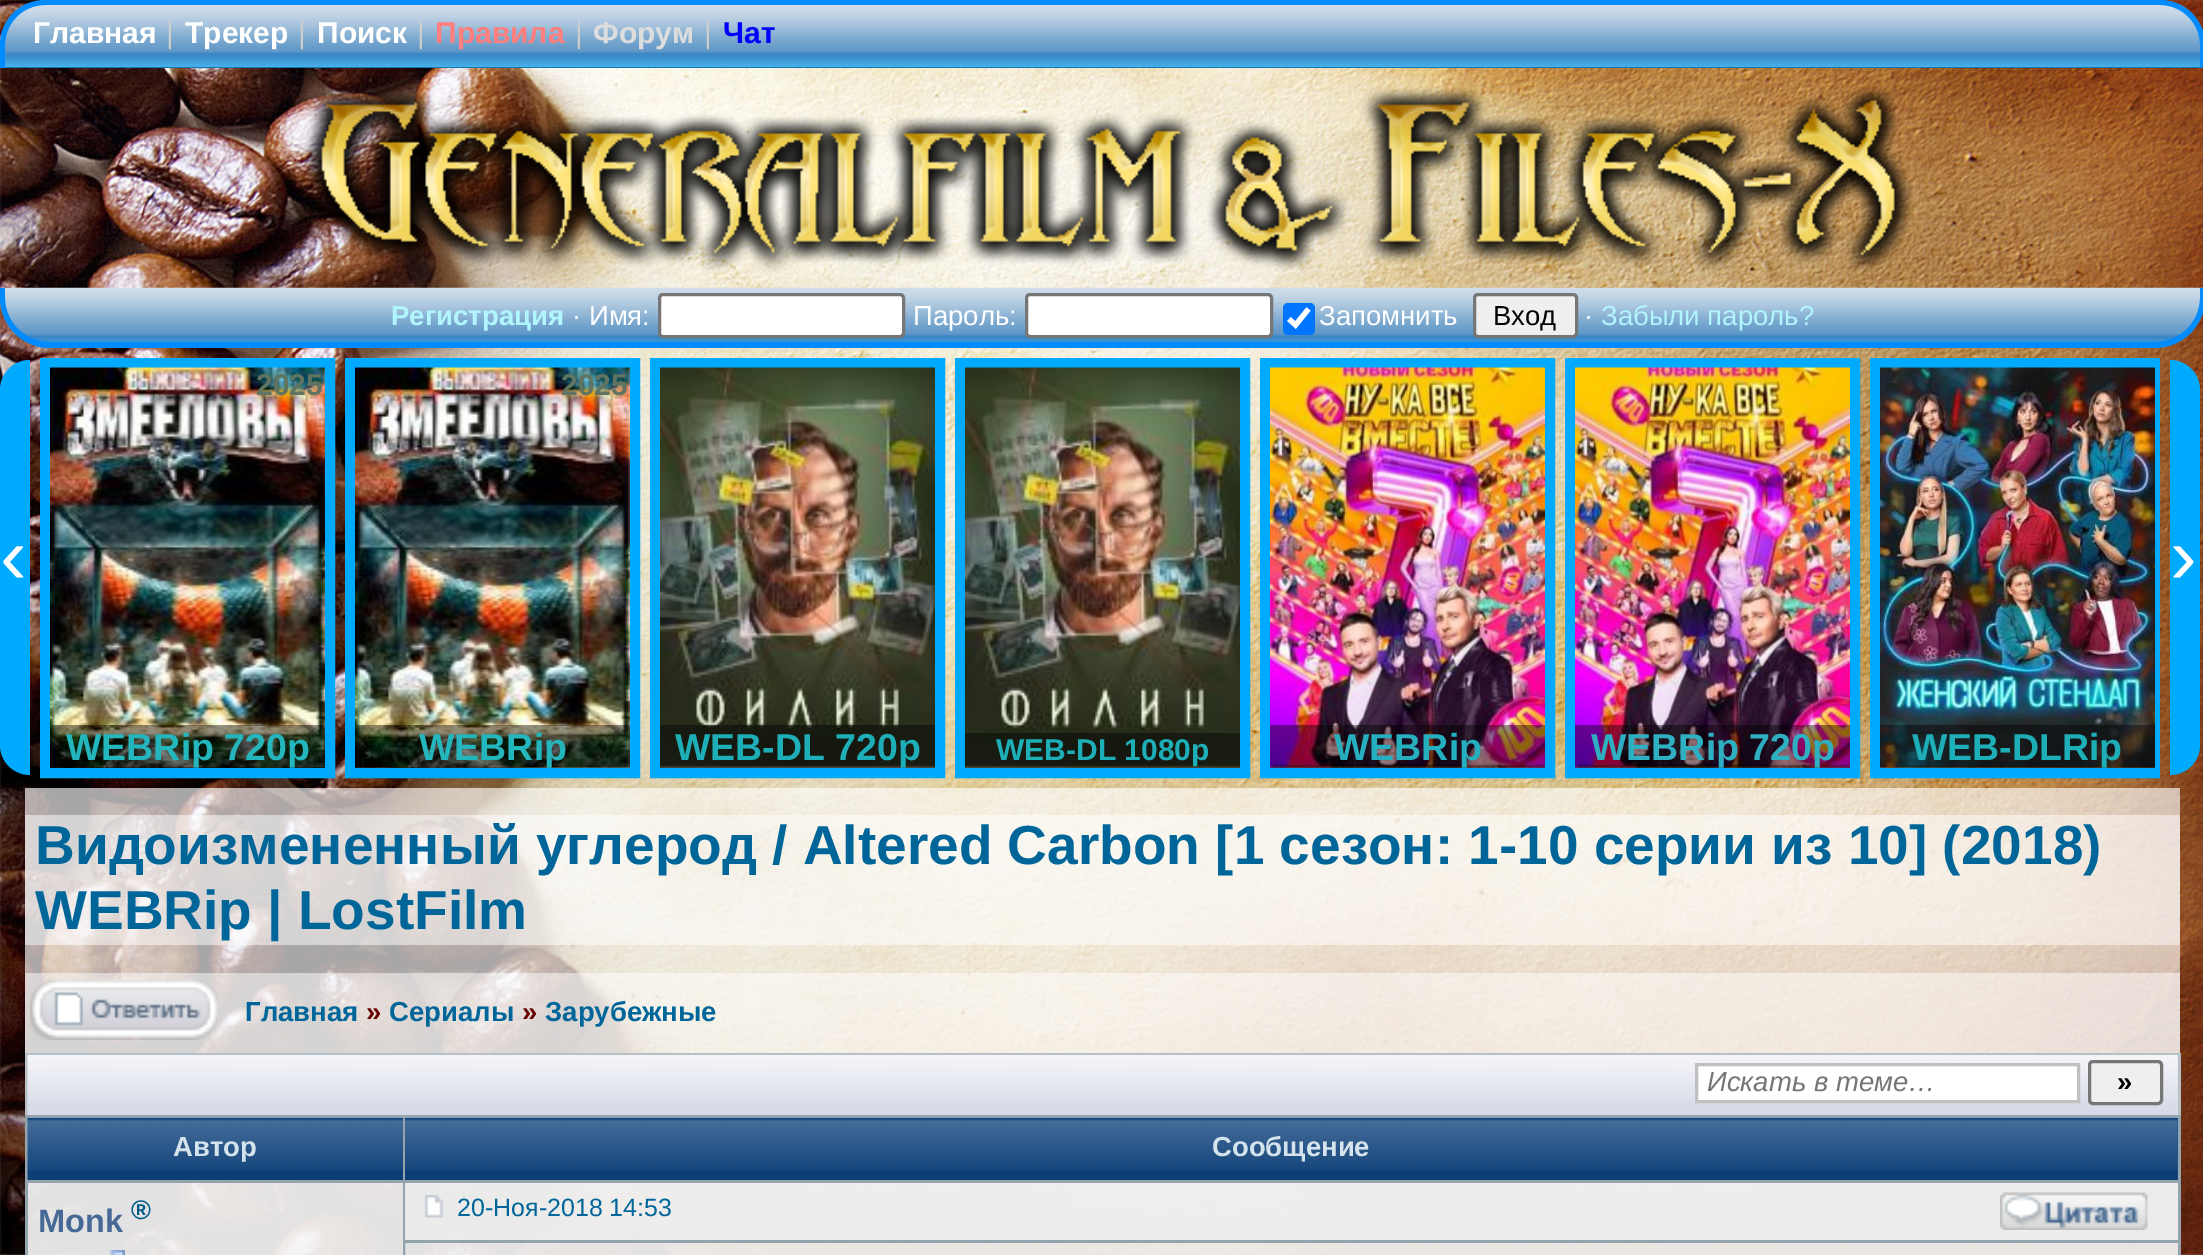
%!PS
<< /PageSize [2203 1255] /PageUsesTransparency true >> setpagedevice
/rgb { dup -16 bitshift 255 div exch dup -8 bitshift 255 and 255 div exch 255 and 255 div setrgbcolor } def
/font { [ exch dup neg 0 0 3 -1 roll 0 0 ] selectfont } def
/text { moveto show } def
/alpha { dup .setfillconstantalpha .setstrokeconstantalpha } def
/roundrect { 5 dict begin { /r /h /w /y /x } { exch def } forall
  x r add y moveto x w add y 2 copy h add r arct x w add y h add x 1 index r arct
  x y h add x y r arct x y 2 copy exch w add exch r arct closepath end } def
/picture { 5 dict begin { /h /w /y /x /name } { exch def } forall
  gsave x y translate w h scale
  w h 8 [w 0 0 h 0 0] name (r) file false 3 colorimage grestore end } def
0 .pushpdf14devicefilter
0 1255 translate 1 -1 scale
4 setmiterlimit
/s1 { /LiberationSans-Bold 30 font 16#FFFFFF rgb } def
/s2 { /LiberationSans-Regular 30 font 16#CDCDCD rgb } def
/s3 { /LiberationSans-Bold 30 font 16#FF7E7E rgb } def
/s4 { /LiberationSans-Bold 30 font 16#DDDDDD rgb } def
/s5 { /LiberationSans-Bold 30 font 16#0000FF rgb } def
/s6 { /LiberationSans-Bold 27.5 font 16#B1F6FF rgb } def
/s7 { /LiberationSans-Regular 27.5 font 16#FFFFFF rgb } def
/s8 { /LiberationSans-Regular 27.5 font 16#000000 rgb } def
/s9 { /LiberationSans-Regular 27.5 font 16#B1F6FF rgb } def
/s10 { /LiberationSans-Regular 80 font 16#FFFFFF rgb } def
/s11 { /LiberationSans-Bold 30 font 16#617461 rgb } def
/s12 { /LiberationSans-Bold 37.5 font 16#24B6BD rgb } def
/s13 { /LiberationSans-Bold 37.5 font 16#1EAEB7 rgb } def
/s14 { /LiberationSans-Bold 30 font 16#1EAEB7 rgb } def
/s15 { /LiberationSans-Bold 37.5 font 16#26AFBE rgb } def
/s16 { /LiberationSans-Bold 37.5 font 16#2FAFC2 rgb } def
/s17 { /LiberationSans-Bold 55 font 16#006699 rgb } def
/s18 { /LiberationSans-Bold 27.5 font 16#006699 rgb } def
/s19 { /LiberationSans-Bold 27.5 font 16#660000 rgb } def
/s20 { /LiberationSans-Italic 27.5 font 16#757575 rgb } def
/s21 { /LiberationSans-Bold 27.5 font 16#000000 rgb } def
/s22 { /LiberationSans-Bold 27.5 font 16#D5E4EC rgb } def
/s23 { /LiberationSans-Bold 32.5 font 16#476996 rgb } def
/s24 { /LiberationSans-Bold 27 font 16#005A88 rgb } def
/s25 { /LiberationSans-Regular 25 font 16#006699 rgb } def
16#FFFFFF rgb
0 0 2203 1255 rectfill
(pic1.raw) 0 0 2203 1255 picture
16#006699 rgb
45 5 moveto 2160 5 lineto 2182 5 2200 23 2200 45 curveto 2200 68 lineto 5 68 lineto 5 45 lineto 5 23 23 5 45 5 curveto closepath fill
(pic2.raw) 0 5 2203 63 picture
16#008BFF rgb
45 0 moveto 2160 0 lineto 2185 0 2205 20 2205 45 curveto 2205 68 lineto 0 68 lineto 0 45 lineto 0 20 20 0 45 0 curveto closepath 45 5 moveto 2160 5 lineto 2182 5 2200 23 2200 45 curveto 2200 68 lineto 5 68 lineto 5 45 lineto 5 23 23 5 45 5 curveto closepath eofill
s1
(Главная) 33 43 text
s2
(|) 166 43 text
s1
(Трекер) 185 43 text
s2
(|) 298 43 text
s1
(Поиск) 317 43 text
s2
(|) 417 43 text
s3
(Правила) 435 43 text
s2
(|) 575 43 text
s4
(Форум) 593 43 text
s2
(|) 704 43 text
s5
(Чат) 723 43 text
(pic3.raw) 303 85 1610 188 picture
(pic4.raw) 0 287 2203 61 picture
16#008BFF rgb
0 288 moveto 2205 288 lineto 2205 298 lineto 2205 325 2183 348 2155 348 curveto 50 348 lineto 22 348 0 325 0 298 curveto closepath 5 288 moveto 2200 288 lineto 2200 298 lineto 2200 322 2180 342 2155 342 curveto 50 342 lineto 25 342 5 322 5 298 curveto closepath eofill
s6
(Регистрация) 391 325 text
s7
(· Имя:) 572 325 text
659.5 294.5 244 42 3.5 roundrect gsave fill grestore
16#767676 rgb
3 setlinewidth
stroke
s7
(Пароль:) 913 325 text
1026.5 294.5 245 42 3.5 roundrect gsave fill grestore
16#767676 rgb
stroke
16#0075FF rgb
1283 303 32 32 5 roundrect fill
16#FFFFFF rgb
5.2 setlinewidth
1289 319 moveto 1295.5 325 lineto 1308.5 309 lineto stroke
(Запомнить) 1319 325 text
16#EFEFEF rgb
1474.5 294.5 102 42 3.5 roundrect gsave fill grestore
16#767676 rgb
3 setlinewidth
stroke
s8
(Вход) 1493 325 text
s7
(·) 1584 325 text
s9
(Забыли пароль?) 1601 325 text
16#00AAFF rgb
30 360 moveto 30 775 lineto 13.5 775 0 761.5 0 745 curveto 0 390 lineto 0 373.5 13.5 360 30 360 curveto closepath fill
s10
(‹) 0 583 text
16#00AAFF rgb
10 setlinewidth
45 363 285 410 rectstroke
(pic5.raw) 50 367 275 401 picture
s11
(2025) 256 395 text
0.42 alpha
16#000000 rgb
50 725 275 43 rectfill
1 alpha
s12
(WEBRip 720p) 66 760 text
16#00AAFF rgb
350 363 285 410 rectstroke
(pic6.raw) 355 367 275 401 picture
s11
(2025) 561 395 text
0.42 alpha
16#000000 rgb
355 725 275 43 rectfill
1 alpha
s12
(WEBRip) 419 760 text
16#00AAFF rgb
655 363 285 410 rectstroke
(pic7.raw) 660 367 275 401 picture
0.42 alpha
16#000000 rgb
660 725 275 43 rectfill
1 alpha
s13
(WEB-DL 720p) 675 760 text
16#00AAFF rgb
960 363 285 410 rectstroke
(pic8.raw) 965 367 275 401 picture
0.42 alpha
16#000000 rgb
965 733 275 35 rectfill
1 alpha
s14
(WEB-DL 1080p) 996 760 text
16#00AAFF rgb
1265 363 285 410 rectstroke
(pic9.raw) 1270 367 275 401 picture
0.42 alpha
16#000000 rgb
1270 725 275 43 rectfill
1 alpha
s15
(WEBRip) 1334 760 text
16#00AAFF rgb
1570 363 285 410 rectstroke
(pic10.raw) 1575 367 275 401 picture
0.42 alpha
16#000000 rgb
1575 725 275 43 rectfill
1 alpha
s16
(WEBRip 720p) 1591 760 text
gsave
40 358 2120 475 rectclip
16#00AAFF rgb
1875 363 285 410 rectstroke
grestore
(pic11.raw) 1880 367 275 401 picture
0.42 alpha
16#000000 rgb
1880 725 275 43 rectfill
1 alpha
s13
(WEB-DLRip) 1912 760 text
16#00AAFF rgb
2170 360 moveto 2186.5 360 2200 373.5 2200 390 curveto 2200 745 lineto 2200 761.5 2186.5 775 2170 775 curveto closepath fill
s10
(›) 2170 583 text
0.65 alpha
25 788 2155 467 rectfill
0.5 alpha
25 815 2155 130 rectfill
1 alpha
s17
(Видоизмененный углерод / Altered Carbon [1 сезон: 1-10 серии из 10] \(2018\)) 35 864 text
(WEBRip | LostFilm) 35 929 text
0.5 alpha
16#FFFFFF rgb
25 973 2155 80 rectfill
1 alpha
(pic12.raw) 30 979 188 61 picture
s18
(Главная) 245 1021 text
s19
(») 366 1021 text
s18
(Сериалы) 389 1021 text
s19
(») 522 1021 text
s18
(Зарубежные) 545 1021 text
16#B7C0C5 rgb
25 1053 2155 2 rectfill
2178 1053 3 62 rectfill
25 1053 3 62 rectfill
16#E0E5E9 rgb
2177 1055 1 60 rectfill
(pic13.raw) 27 1055 2151 60 picture
16#FFFFFF rgb
1696.5 1064.5 moveto 2078.5 1064.5 lineto 2078.5 1101.5 lineto 1696.5 1101.5 lineto closepath gsave fill grestore
16#C0C0C0 rgb
3 setlinewidth
stroke
s20
(Искать в теме…) 1707 1091 text
16#EFEFEF rgb
2089.5 1061.5 72 42 3.5 roundrect gsave fill grestore
16#767676 rgb
stroke
s21
(») 2117 1091 text
16#93A4AD rgb
2178 1115 3 140 rectfill
25 1115 3 140 rectfill
(pic14.raw) 27 1117 376 63 picture
28 1115 2150 3 rectfill
403 1115 2 65 rectfill
s22
(Автор) 173 1156 text
16#1C508C rgb
2177 1118 1 62 rectfill
(pic15.raw) 405 1118 1773 62 picture
s22
(Сообщение) 1212 1156 text
0.5 alpha
16#F5F5F5 rgb
28 1183 2150 72 rectfill
28 1183 375 72 rectfill
1 alpha
16#93A4AD rgb
28 1180 377 3 rectfill
403 1180 3 75 rectfill
s23
(Monk) 38 1232 text
s24
(®) 131 1219 text
(pic16.raw) 109 1250 16 5 picture
0.5 alpha
16#F5F5F5 rgb
405 1183 1773 72 rectfill
1 alpha
16#93A4AD rgb
405 1180 1773 3 rectfill
0.7 alpha
16#EFEFEF rgb
405 1183 1773 57 rectfill
1 alpha
16#93A4AD rgb
405 1240 1773 3 rectfill
(pic17.raw) 424 1195 20 23 picture
s25
(20-Ноя-2018 14:53) 457 1216 text
(pic18.raw) 2000 1192 148 38 picture
.poppdf14devicefilter showpage
